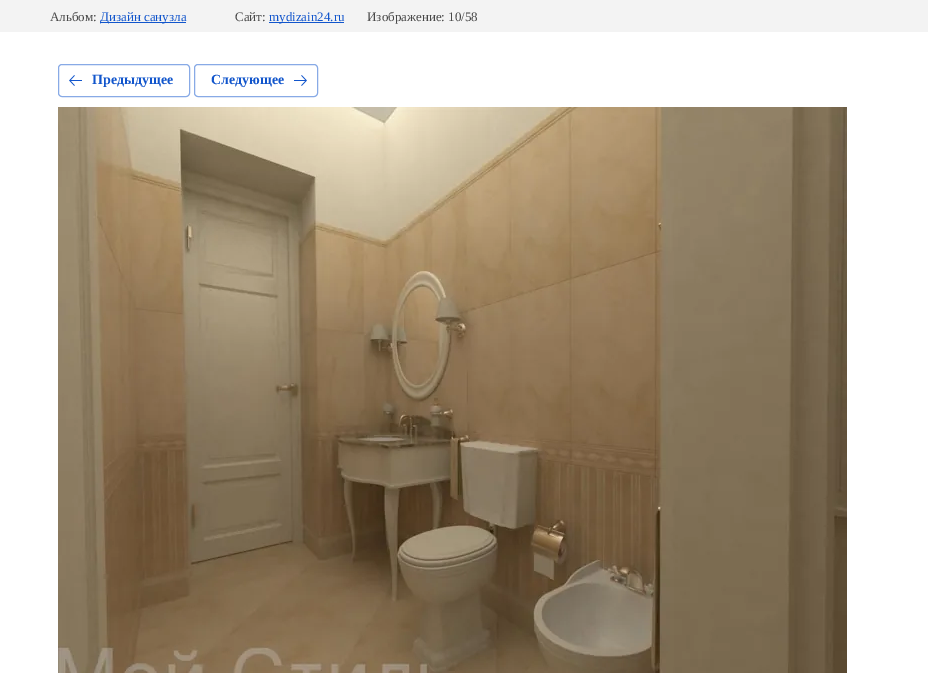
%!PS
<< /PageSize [928 673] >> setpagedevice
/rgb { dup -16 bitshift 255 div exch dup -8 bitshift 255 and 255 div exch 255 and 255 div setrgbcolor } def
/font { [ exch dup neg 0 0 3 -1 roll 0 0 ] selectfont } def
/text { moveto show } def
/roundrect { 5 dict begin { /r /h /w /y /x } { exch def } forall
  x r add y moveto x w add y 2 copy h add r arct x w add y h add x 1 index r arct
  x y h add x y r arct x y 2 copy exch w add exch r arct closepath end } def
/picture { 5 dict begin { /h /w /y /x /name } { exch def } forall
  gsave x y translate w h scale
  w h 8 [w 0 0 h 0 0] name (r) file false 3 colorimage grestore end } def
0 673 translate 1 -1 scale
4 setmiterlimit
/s1 { /LiberationSerif-Regular 13 font 16#484848 rgb } def
/s2 { /LiberationSerif-Regular 13 font 16#1155CC rgb } def
/s3 { /LiberationSerif-Bold 14 font 16#1155CC rgb } def
16#FFFFFF rgb
0 0 928 673 rectfill
16#F3F3F3 rgb
0 0 928 32 rectfill
s1
(Альбом:) 50 21 text
16#1155CC rgb
100 22 86 1 rectfill
(Дизайн санузла) 100 21 text
s1
(Сайт:) 235 21 text
16#1155CC rgb
269 22 75 1 rectfill
(mydizain24.ru) 269 21 text
s1
(Изображение: 10/58) 367 21 text
16#88AAE6 rgb
58.5 64.5 131 32 3.5 roundrect stroke
(pic1.raw) 69 75 13 11 picture
s3
(Предыдущее) 92 84 text
16#88AAE6 rgb
194.5 64.5 123 32 3.5 roundrect stroke
s3
(Следующее) 211 84 text
(pic2.raw) 294 75 13 11 picture
(pic3.raw) 58 107 789 566 picture
showpage
